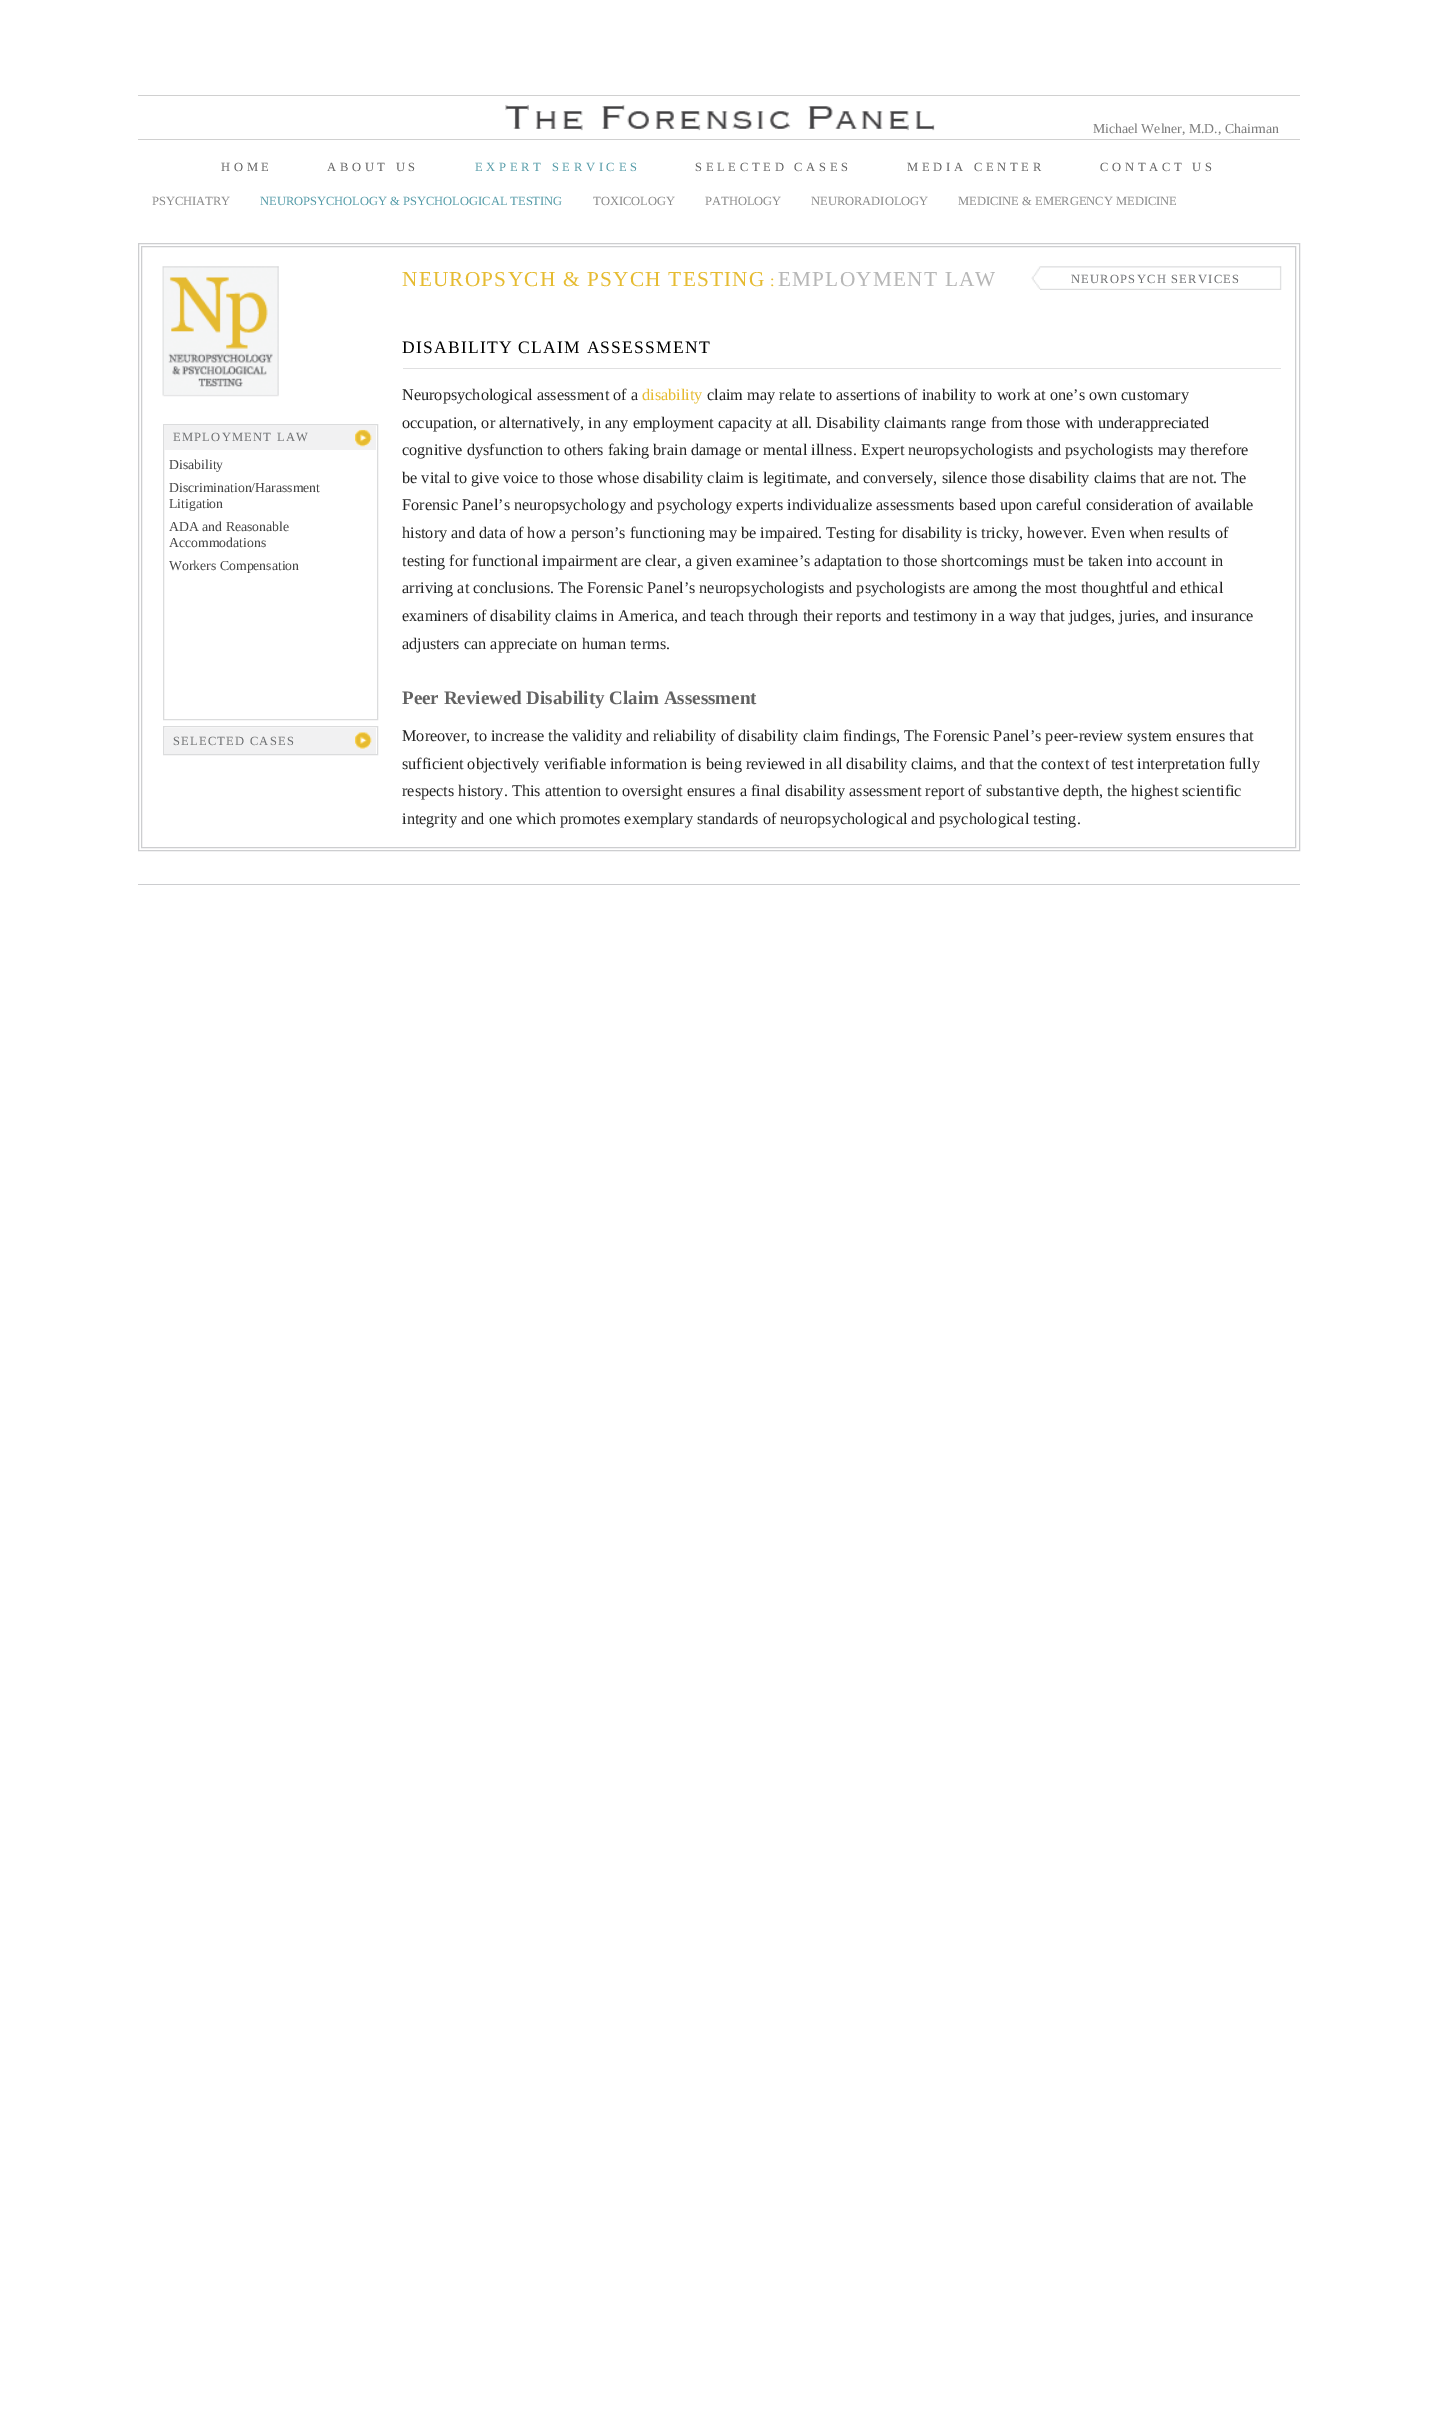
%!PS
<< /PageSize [1436 2426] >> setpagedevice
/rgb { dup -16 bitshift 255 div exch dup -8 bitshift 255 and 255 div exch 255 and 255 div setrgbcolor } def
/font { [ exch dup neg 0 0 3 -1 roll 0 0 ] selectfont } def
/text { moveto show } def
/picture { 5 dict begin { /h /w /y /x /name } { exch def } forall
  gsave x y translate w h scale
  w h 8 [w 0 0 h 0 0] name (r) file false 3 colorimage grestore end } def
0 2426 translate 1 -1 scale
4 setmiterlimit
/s1 { /LiberationSerif-Regular 13.75 font 16#7E7E7E rgb } def
/s2 { /LiberationSerif-Regular 12.5 font 16#898989 rgb } def
/s3 { /LiberationSerif-Regular 12.5 font 16#549BA8 rgb } def
/s4 { /LiberationSerif-Regular 13.75 font 16#464646 rgb } def
/s5 { /LiberationSerif-Regular 16.25 font 16#E6BB30 rgb } def
/s6 { /LiberationSerif-Regular 16.25 font 16#252525 rgb } def
/s7 { /LiberationSerif-Bold 19 font 16#636363 rgb } def
16#FFFFFF rgb
0 0 1436 2426 rectfill
16#CCCDCF rgb
138 884 1162 1 rectfill
16#D0D0D0 rgb
138 95 1162 1 rectfill
138 139 1162 1 rectfill
(pic1.raw) 505 104 430 27 picture
s1
(Michael Welner, M.D., Chairman) 1093 133 text
/LiberationSerif-Regular 12.5 font
16#636363 rgb
221 171 moveto 3.75 0 (HOME) ashow
327 171 moveto 3.75 0 (ABOUT US) ashow
16#549BA8 rgb
475 171 moveto 3.75 0 (EXPERT SERVICES) ashow
16#636363 rgb
695 171 moveto 3.75 0 (SELECTED CASES) ashow
907 171 moveto 3.75 0 (MEDIA CENTER) ashow
1100 171 moveto 3.75 0 (CONTACT US) ashow
s2
(PSYCHIATRY) 152 205 text
s3
(NEUROPSYCHOLOGY & PSYCHOLOGICAL TESTING) 260 205 text
s2
(TOXICOLOGY) 593 205 text
(PATHOLOGY) 705 205 text
(NEURORADIOLOGY) 811 205 text
(MEDICINE & EMERGENCY MEDICINE) 958 205 text
16#CDCED0 rgb
138.5 243.5 1161 607 rectstroke
141.5 246.5 1154 601 rectstroke
(pic2.raw) 162 266 117 131 picture
16#DBDCDD rgb
163.5 424.5 214 295 rectstroke
16#F1F1F2 rgb
164 425 212 25 rectfill
(pic3.raw) 355 429 17 18 picture
16#6D6F71 rgb
173 441 moveto 1.25 0 (EMPLOYMENT LAW) ashow
s4
(Disability) 169 469 text
(Discrimination/Harassment) 169 492 text
(Litigation) 169 508 text
(ADA and Reasonable) 169 531 text
(Accommodations) 169 547 text
(Workers Compensation) 169 570 text
16#DBDCDD rgb
163.5 726.5 214 28 rectstroke
16#F1F1F2 rgb
164 728 212 26 rectfill
(pic4.raw) 355 732 17 17 picture
/LiberationSerif-Regular 12.5 font
16#6D6F71 rgb
173 745 moveto 1.25 0 (SELECTED CASES) ashow
/LiberationSerif-Regular 21.25 font
16#E6BB30 rgb
402 286 moveto 1.25 0 (NEUROPSYCH & PSYCH TESTING) ashow
s5
(:) 770 286 text
/LiberationSerif-Regular 21.25 font
16#B7B7B7 rgb
778 286 moveto 1.25 0 (EMPLOYMENT LAW) ashow
(pic5.raw) 1031 266 251 24 picture
/LiberationSerif-Regular 12.5 font
16#6D6F71 rgb
1071 283 moveto 1.25 0 (NEUROPSYCH SERVICES) ashow
16#E0E0E1 rgb
403 368 878 1 rectfill
/LiberationSerif-Regular 17.5 font
16#000000 rgb
402 353 moveto 1.25 0 (DISABILITY CLAIM ASSESSMENT) ashow
s6
(Neuropsychological assessment of a) 402 400 text
s5
(disability) 642 400 text
s6
(claim may relate to assertions of inability to work at one’s own customary) 707 400 text
(occupation, or alternatively, in any employment capacity at all. Disability claimants range from those with underappreciated) 402 428 text
(cognitive dysfunction to others faking brain damage or mental illness. Expert neuropsychologists and psychologists may therefore) 402 455 text
(be vital to give voice to those whose disability claim is legitimate, and conversely, silence those disability claims that are not. The) 402 483 text
(Forensic Panel’s neuropsychology and psychology experts individualize assessments based upon careful consideration of available) 402 510 text
(history and data of how a person’s functioning may be impaired. Testing for disability is tricky, however. Even when results of) 402 538 text
(testing for functional impairment are clear, a given examinee’s adaptation to those shortcomings must be taken into account in) 402 566 text
(arriving at conclusions. The Forensic Panel’s neuropsychologists and psychologists are among the most thoughtful and ethical) 402 593 text
(examiners of disability claims in America, and teach through their reports and testimony in a way that judges, juries, and insurance) 402 621 text
(adjusters can appreciate on human terms.) 402 649 text
s7
(Peer Reviewed Disability Claim Assessment) 402 704 text
s6
(Moreover, to increase the validity and reliability of disability claim findings, The Forensic Panel’s peer-review system ensures that) 402 741 text
(sufficient objectively verifiable information is being reviewed in all disability claims, and that the context of test interpretation fully) 402 769 text
(respects history. This attention to oversight ensures a final disability assessment report of substantive depth, the highest scientific) 402 796 text
(integrity and one which promotes exemplary standards of neuropsychological and psychological testing.) 402 824 text
showpage
